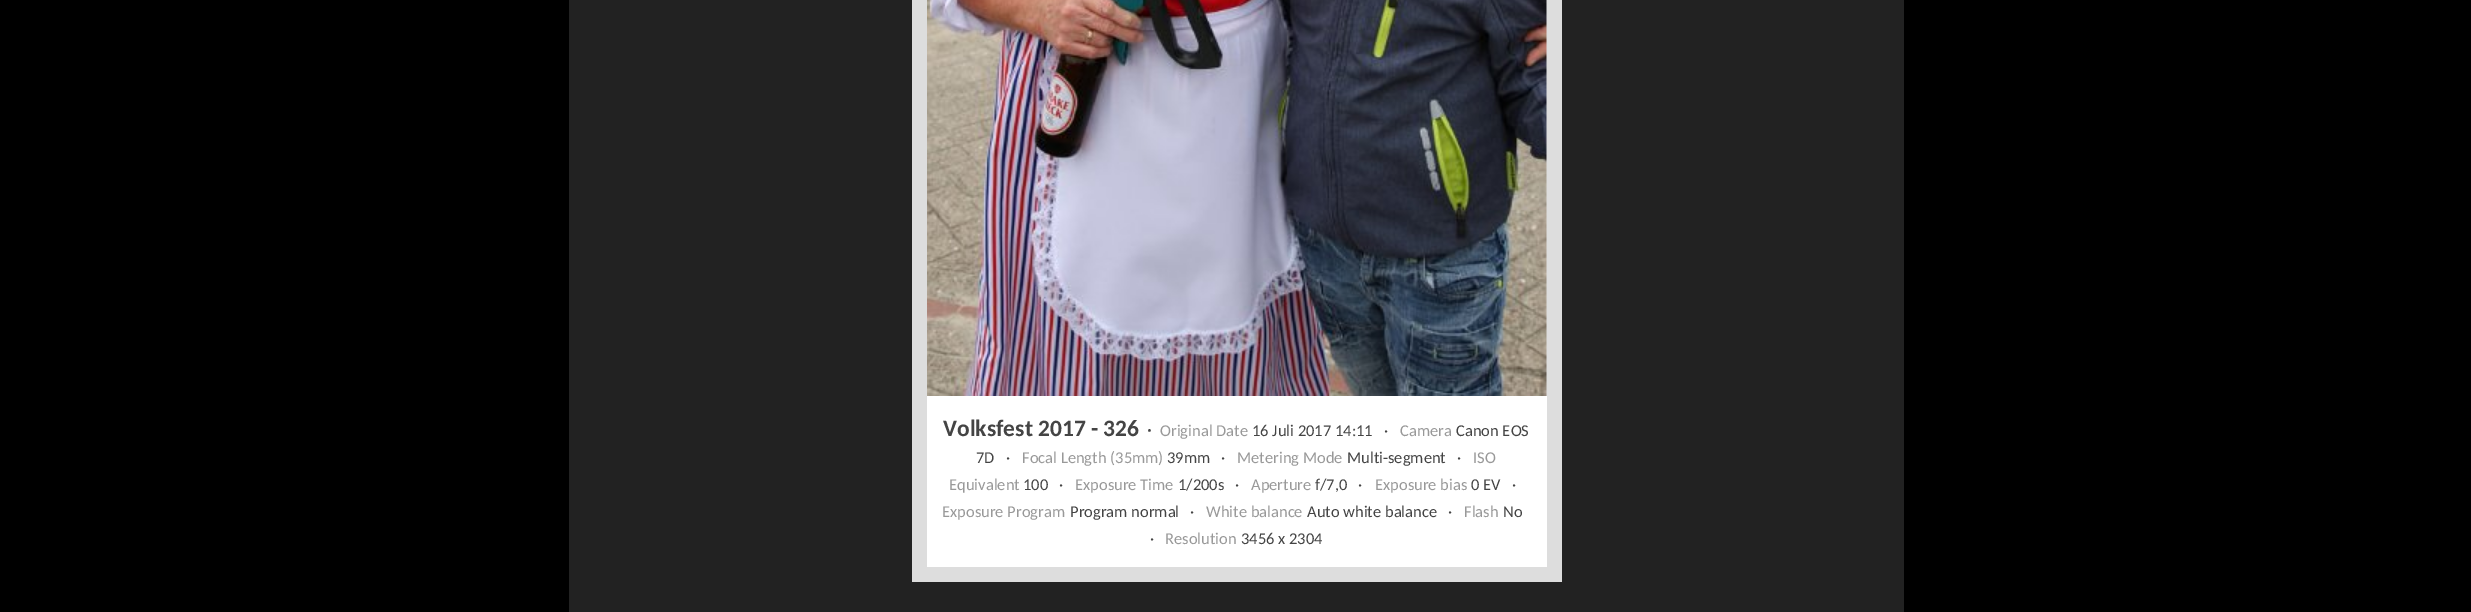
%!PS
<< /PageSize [2471 612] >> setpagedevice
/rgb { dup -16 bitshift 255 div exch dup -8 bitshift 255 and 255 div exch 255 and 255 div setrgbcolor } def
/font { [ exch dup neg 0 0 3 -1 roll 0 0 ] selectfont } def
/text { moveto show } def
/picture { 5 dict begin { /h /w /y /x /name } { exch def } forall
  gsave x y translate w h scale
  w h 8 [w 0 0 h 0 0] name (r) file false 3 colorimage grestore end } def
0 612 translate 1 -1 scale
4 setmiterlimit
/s1 { /Carlito-Bold 23.5 font 16#444444 rgb } def
/s2 { /Carlito-Regular 20 font 16#444444 rgb } def
/s3 { /Carlito-Regular 16.5 font 16#999999 rgb } def
/s4 { /Carlito-Regular 16.5 font 16#444444 rgb } def
16#000000 rgb
0 0 2471 612 rectfill
16#222222 rgb
569 0 1335 612 rectfill
16#DDDDDD rgb
912 0 650 582 rectfill
(pic1.raw) 927 0 620 396 picture
16#FFFFFF rgb
927 396 620 171 rectfill
s1
(Volksfest 2017 - 326) 943 436 text
s2
(·) 1147 436 text
s3
(Original Date) 1160 436 text
s4
(16 Juli 2017 14:11   ·) 1252 436 text
s3
(Camera) 1400 436 text
s4
(Canon EOS) 1456 436 text
(7D   ·) 976 463 text
s3
(Focal Length \(35mm\)) 1022 463 text
s4
(39mm   ·) 1167 463 text
s3
(Metering Mode) 1237 463 text
s4
(Multi-segment   ·) 1347 463 text
s3
(ISO) 1473 463 text
(Equivalent) 949 490 text
s4
(100   ·) 1023 490 text
s3
(Exposure Time) 1075 490 text
s4
(1/200s   ·) 1178 490 text
s3
(Aperture) 1251 490 text
s4
(f/7,0   ·) 1315 490 text
s3
(Exposure bias) 1375 490 text
s4
(0 EV   ·) 1471 490 text
s3
(Exposure Program) 942 517 text
s4
(Program normal   ·) 1070 517 text
s3
(White balance) 1206 517 text
s4
(Auto white balance   ·) 1307 517 text
s3
(Flash) 1464 517 text
s4
(No) 1503 517 text
(·) 1150 544 text
s3
(Resolution) 1165 544 text
s4
(3456 x 2304) 1241 544 text
showpage
